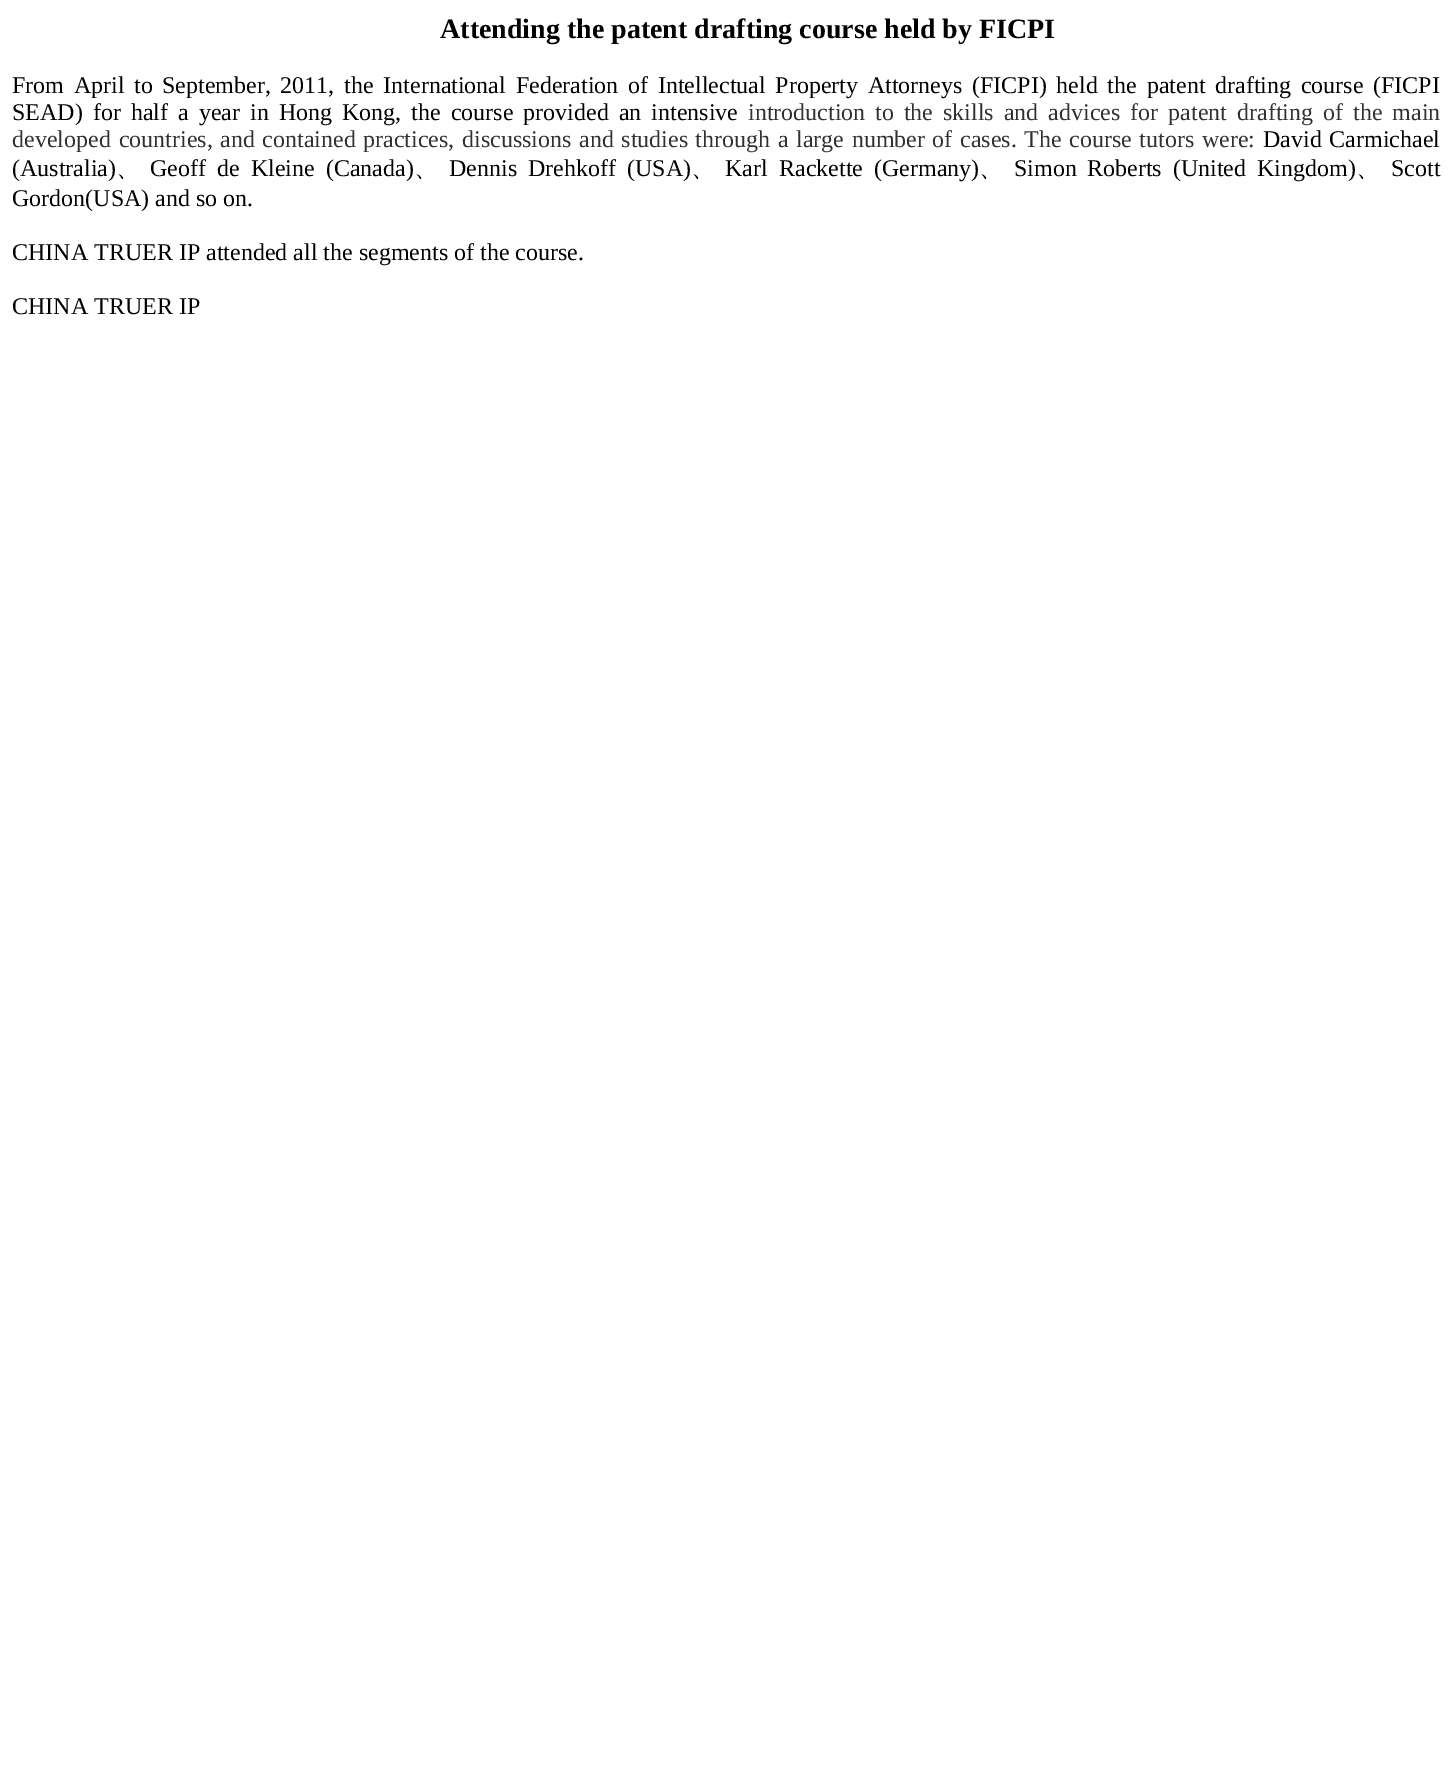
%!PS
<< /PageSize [1451 1792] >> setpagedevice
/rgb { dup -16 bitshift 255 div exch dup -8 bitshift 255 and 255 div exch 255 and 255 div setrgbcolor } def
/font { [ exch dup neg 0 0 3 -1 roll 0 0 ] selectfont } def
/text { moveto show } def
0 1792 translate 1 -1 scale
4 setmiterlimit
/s1 { /LiberationSerif-Bold 28 font 16#000000 rgb } def
/s2 { /LiberationSerif-Regular 24 font 16#313131 rgb } def
/s3 { /LiberationSerif-Regular 24 font 16#000000 rgb } def
/s4 { /WenQuanYiZenHei-Medium 24 font 16#000000 rgb } def
16#FFFFFF rgb
0 0 1451 1792 rectfill
s1
(Attending the patent drafting course held by FICPI) 440 38 text
/LiberationSerif-Regular 24 font
12 93 moveto 3.75 0 32 (From April to) widthshow
162 93 moveto 3.75 0 32 (September, 2011, the International Federation of Intellectual Property Attorneys) widthshow
972 93 moveto 3.75 0 32 (\(FICPI\) held the patent drafting course \(FICPI) widthshow
12 120 moveto 4 0 32 (SEAD\) for half a year in Hong) widthshow
342 120 moveto 4 0 32 (Kong, the course provided an intensive) widthshow
s2
(introduction) 748 120 text
875 120 moveto 4 0 32 (to the skills and advices for patent drafting of the main) widthshow
12 147 moveto 2 0 32 (developed countries,) widthshow
220 147 moveto 1.6 0 32 (and contained practices, discussions and studies through a large number of) widthshow
960 147 moveto 1.6 0 32 (cases. The course tutors were:) widthshow
16#000000 rgb
1263 147 moveto 1.6 0 32 (David Carmichael) widthshow
(\(Australia\)) 12 176 text
s4
(、) 116 176 text
s3
(Geoff) 150 176 text
217 176 moveto 5 0 32 (de Kleine \(Canada\)) widthshow
s4
(、) 414 176 text
s3
(Dennis) 449 176 text
528 176 moveto 5 0 32 (Drehkoff \(USA\)) widthshow
s4
(、) 691 176 text
s3
(Karl) 725 176 text
779 176 moveto 5 0 32 (Rackette \(Germany\)) widthshow
s4
(、) 979 176 text
s3
(Simon) 1014 176 text
1087 176 moveto 5 0 32 (Roberts \(United Kingdom\)) widthshow
s4
(、) 1356 176 text
s3
(Scott) 1391 176 text
(Gordon\(USA\) and so on.) 12 206 text
(CHINA TRUER IP attended all the segments of the course.) 12 260 text
(CHINA TRUER IP) 12 314 text
showpage
